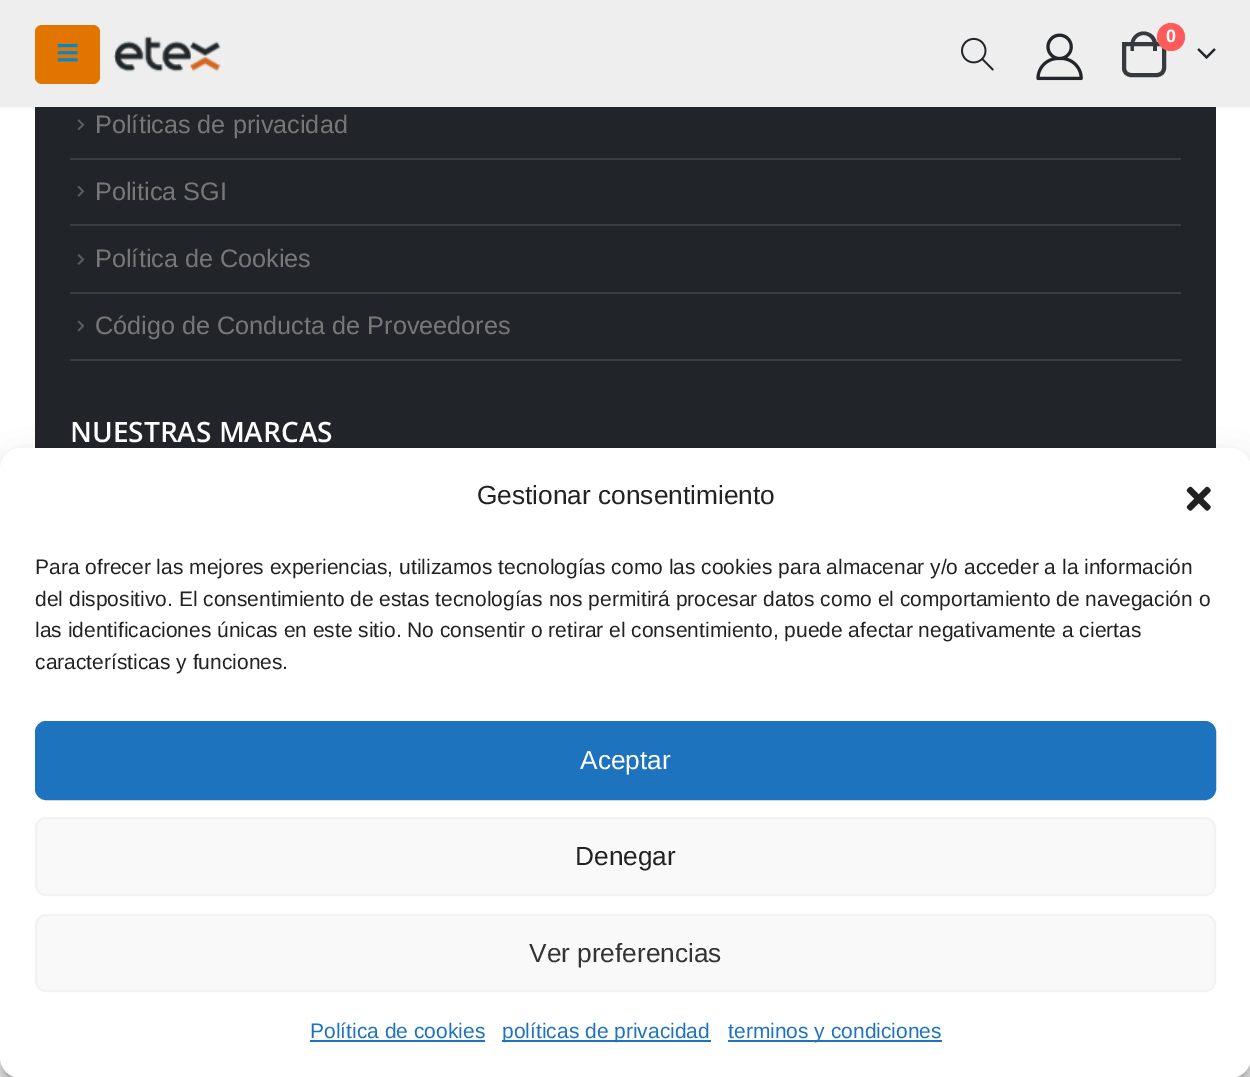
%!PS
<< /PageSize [1250 1077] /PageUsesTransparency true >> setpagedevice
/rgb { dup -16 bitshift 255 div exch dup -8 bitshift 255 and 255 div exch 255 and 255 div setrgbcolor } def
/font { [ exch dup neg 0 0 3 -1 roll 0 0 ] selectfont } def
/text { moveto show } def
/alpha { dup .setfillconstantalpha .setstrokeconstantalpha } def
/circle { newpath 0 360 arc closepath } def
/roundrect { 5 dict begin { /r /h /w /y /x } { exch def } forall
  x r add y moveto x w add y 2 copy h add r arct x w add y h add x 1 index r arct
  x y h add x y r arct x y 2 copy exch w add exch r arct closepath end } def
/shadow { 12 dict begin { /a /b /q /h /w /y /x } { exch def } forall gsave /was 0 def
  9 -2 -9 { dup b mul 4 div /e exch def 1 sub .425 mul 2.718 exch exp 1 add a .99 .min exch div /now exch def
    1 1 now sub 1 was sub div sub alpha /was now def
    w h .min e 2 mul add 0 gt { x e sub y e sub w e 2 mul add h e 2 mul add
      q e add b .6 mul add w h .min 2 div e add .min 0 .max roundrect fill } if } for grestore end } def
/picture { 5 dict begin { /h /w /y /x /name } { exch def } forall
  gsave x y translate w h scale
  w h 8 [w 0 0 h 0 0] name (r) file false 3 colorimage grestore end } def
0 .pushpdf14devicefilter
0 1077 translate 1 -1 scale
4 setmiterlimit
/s1 { /LiberationSans-Bold 18 font 16#FFFFFF rgb } def
/s2 { /LiberationSans-Regular 25.25 font 16#777777 rgb } def
/s3 { /OpenSans-SemiBold 28 font 16#FFFFFF rgb } def
/s4 { /LiberationSans-Regular 26.25 font 16#222222 rgb } def
/s5 { /LiberationSans-Regular 21 font 16#222222 rgb } def
/s6 { /LiberationSans-Regular 26.25 font 16#FFFFFF rgb } def
/s7 { /LiberationSans-Regular 26.25 font 16#333333 rgb } def
/s8 { /LiberationSans-Regular 21 font 16#1E73BE rgb } def
16#FFFFFF rgb
0 0 1250 1077 rectfill
16#212529 rgb
35 107 1181 341 rectfill
16#000000 rgb
0 0 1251 107 0 2.5 0.06 shadow
16#EEEEEE rgb
0 0 1250 107 rectfill
16#E27500 rgb
35 25 65 59 7 roundrect fill
(pic1.raw) 57 44 21 18 picture
(pic2.raw) 113 36 108 36 picture
(pic3.raw) 961 37 33 34 picture
(pic4.raw) 1036 33 47 48 picture
16#36393D rgb
4 setlinewidth
1124 44 moveto 1164 44 lineto 1164 68 lineto 1164 72 1161 75 1157 75 curveto 1131 75 lineto 1127 75 1124 72 1124 68 curveto closepath stroke
1143.5 31.5 moveto 1151 31.5 1157 37.5 1157 44.5 curveto 1157 51 lineto 1130.5 51 lineto 1130.5 44.5 lineto 1130.5 37.5 1136.5 31.5 1143.5 31.5 curveto closepath 1143.5 35 moveto 1149 35 1153 39.5 1153 44.5 curveto 1153 51 lineto 1134 51 lineto 1134 44.5 lineto 1134 39.5 1138.5 35 1143.5 35 curveto closepath eofill
16#FF5B5B rgb
1171 37 14 circle fill
s1
(0) 1166 42 text
(pic5.raw) 1197 48 19 11 picture
16#3B3E40 rgb
70 359 1111 2 rectfill
(pic6.raw) 77 119 8 11 picture
s2
(Políticas de privacidad) 95 133 text
16#3B3E40 rgb
70 158 1111 2 rectfill
(pic7.raw) 77 186 8 11 picture
s2
(Politica SGI) 95 200 text
16#3B3E40 rgb
70 224 1111 2 rectfill
(pic8.raw) 77 254 8 11 picture
s2
(Política de Cookies) 95 267 text
16#3B3E40 rgb
70 292 1111 2 rectfill
(pic9.raw) 77 320 7 12 picture
s2
(Código de Conducta de Proveedores) 95 334 text
s3
(NUESTRAS MARCAS) 70 442 text
16#000000 rgb
0 459 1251 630 21 5 0.23 shadow
0 466 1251 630 21 17.5 0.19 shadow
16#FFFFFF rgb
0 448 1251 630 21 roundrect fill
s4
(Gestionar consentimiento) 477 504 text
(pic10.raw) 1186 486 25 25 picture
s5
(Para ofrecer las mejores experiencias, utilizamos tecnologías como las cookies para almacenar y/o acceder a la información) 35 574 text
(del dispositivo. El consentimiento de estas tecnologías nos permitirá procesar datos como el comportamiento de navegación o) 35 606 text
(las identificaciones únicas en este sitio. No consentir o retirar el consentimiento, puede afectar negativamente a ciertas) 35 637 text
(características y funciones.) 35 669 text
16#1E73BE rgb
36 722 1179 77 10 roundrect gsave fill grestore
2 setlinewidth
stroke
s6
(Aceptar) 580 769 text
16#F9F9F9 rgb
36 818 1179 77 10 roundrect gsave fill grestore
16#F2F2F2 rgb
stroke
s4
(Denegar) 575 865 text
16#F9F9F9 rgb
36 915 1179 76 10 roundrect gsave fill grestore
16#F2F2F2 rgb
stroke
s7
(Ver preferencias) 529 962 text
s8
(Política de cookies) 310 1038 text
310 1040 175 2 rectfill
502 1040 209 2 rectfill
(políticas de privacidad) 502 1038 text
728 1040 214 2 rectfill
(terminos y condiciones) 728 1038 text
.poppdf14devicefilter showpage
